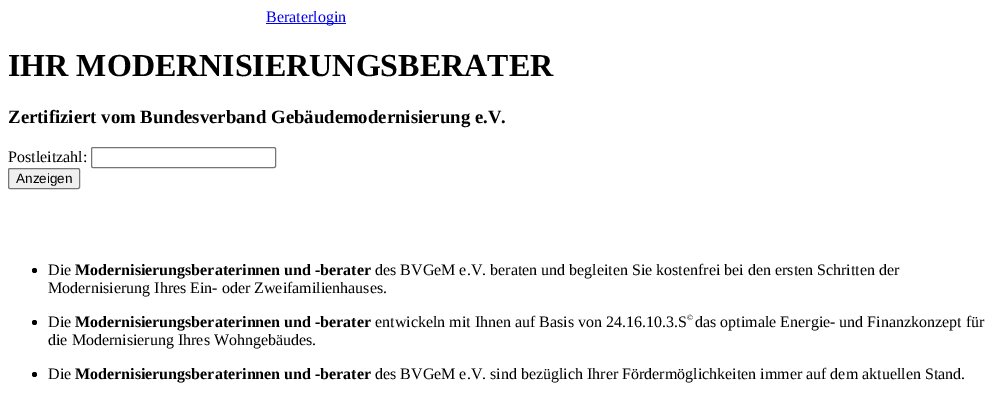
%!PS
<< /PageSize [1000 400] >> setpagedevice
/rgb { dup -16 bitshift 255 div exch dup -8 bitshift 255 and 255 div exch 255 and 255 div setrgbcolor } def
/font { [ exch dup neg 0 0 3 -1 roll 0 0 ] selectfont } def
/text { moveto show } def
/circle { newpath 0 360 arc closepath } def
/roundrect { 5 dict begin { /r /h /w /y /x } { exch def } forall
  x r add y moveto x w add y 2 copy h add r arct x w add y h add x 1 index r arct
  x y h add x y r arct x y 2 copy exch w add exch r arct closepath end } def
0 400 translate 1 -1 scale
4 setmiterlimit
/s1 { /LiberationSerif-Regular 16 font 16#0000EE rgb } def
/s2 { /LiberationSerif-Bold 32 font 16#000000 rgb } def
/s3 { /LiberationSerif-Bold 18.75 font 16#000000 rgb } def
/s4 { /LiberationSerif-Regular 16 font 16#000000 rgb } def
/s5 { /LiberationSans-Regular 13.5 font 16#000000 rgb } def
/s6 { /LiberationSerif-Bold 16 font 16#000000 rgb } def
/s7 { /LiberationSerif-Regular 8 font 16#000000 rgb } def
16#FFFFFF rgb
0 0 1000 400 rectfill
16#0000EE rgb
266 23 80 1 rectfill
s1
(Beraterlogin) 266 22 text
s2
(IHR MODERNISIERUNGSBERATER) 8 76 text
s3
(Zertifiziert vom Bundesverband Gebäudemodernisierung e.V.) 8 123 text
s4
(Postleitzahl:) 8 162 text
16#767676 rgb
91.5 147.5 184 20 1.5 roundrect stroke
16#EFEFEF rgb
8.5 168.5 71 20 1.5 roundrect gsave fill grestore
16#767676 rgb
stroke
s5
(Anzeigen) 16 183 text
34.5 270.5 2.5 circle fill
s4
(Die) 48 275 text
s6
(Modernisierungsberaterinnen und -berater) 75 275 text
s4
(des BVGeM e.V. beraten und begleiten Sie kostenfrei bei den ersten Schritten der) 375 275 text
(Modernisierung Ihres Ein- oder Zweifamilienhauses.) 48 293 text
34.5 322.5 2.5 circle fill
(Die) 48 327 text
s6
(Modernisierungsberaterinnen und -berater) 75 327 text
s4
(entwickeln mit Ihnen auf Basis von 24.16.10.3.S) 375 327 text
s7
(©) 687 320 text
s4
(das optimale Energie- und Finanzkonzept für) 695 327 text
(die Modernisierung Ihres Wohngebäudes.) 48 345 text
34.5 374.5 2.5 circle fill
(Die) 48 379 text
s6
(Modernisierungsberaterinnen und -berater) 75 379 text
s4
(des BVGeM e.V. sind bezüglich Ihrer Fördermöglichkeiten immer auf dem aktuellen Stand.) 375 379 text
showpage
